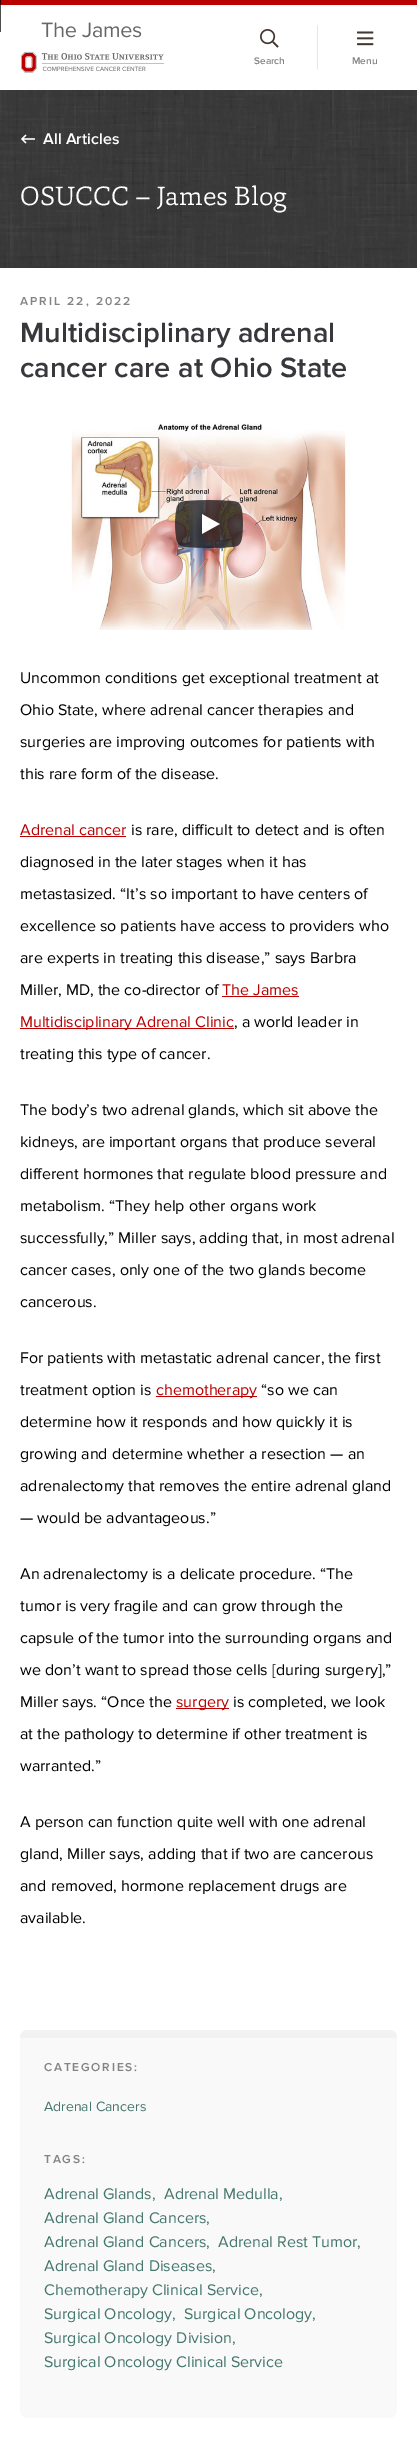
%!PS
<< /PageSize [417 2442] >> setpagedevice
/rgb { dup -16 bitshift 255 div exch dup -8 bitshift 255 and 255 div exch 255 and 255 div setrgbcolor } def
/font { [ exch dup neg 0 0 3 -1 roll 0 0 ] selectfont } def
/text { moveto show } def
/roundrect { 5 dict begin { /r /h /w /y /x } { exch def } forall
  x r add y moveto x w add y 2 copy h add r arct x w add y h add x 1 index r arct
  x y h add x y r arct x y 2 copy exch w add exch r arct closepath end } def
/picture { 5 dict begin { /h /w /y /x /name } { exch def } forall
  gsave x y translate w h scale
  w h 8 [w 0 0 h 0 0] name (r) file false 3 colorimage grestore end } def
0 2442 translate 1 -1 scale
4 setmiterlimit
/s1 { /ProximaNova-SemiBold 10 font 16#848484 rgb } def
/s2 { /ProximaNova-SemiBold 16 font 16#FFFFFF rgb } def
/s3 { /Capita-Light 27 font 16#FFFFFF rgb } def
/s4 { /ProximaNova-SemiBold 29 font 16#37373C rgb } def
/s5 { /ProximaNova-Regular 16 font 16#000000 rgb } def
/s6 { /ProximaNova-Regular 16 font 16#BB0000 rgb } def
/s7 { /ProximaNova-Regular 14 font 16#45776C rgb } def
/s8 { /ProximaNova-Regular 16 font 16#45776C rgb } def
16#FFFFFF rgb
0 0 417 2442 rectfill
16#4D4D4D rgb
0 0 1 32 rectfill
16#BB0000 rgb
0 0 417 5 rectfill
16#380000 rgb
0 0 1 5 rectfill
(pic1.raw) 21 22 143 51 picture
(pic2.raw) 260 29 19 19 picture
s1
(Search) 254 64 text
16#E6E6E6 rgb
317 70 moveto 317 25 lineto 318 26 lineto 318 69 lineto closepath fill
(pic3.raw) 357 31 17 15 picture
s1
(Menu) 352 64 text
(pic4.raw) 0 90 417 178 picture
(pic5.raw) 21 134 14 10 picture
s2
(All Articles) 43 144 text
s3
(OSUCCC – James Blog) 20 205 text
/ProximaNova-SemiBold 12 font
16#848484 rgb
20 305 moveto 2 0 (APRIL 22, 2022) ashow
s4
(Multidisciplinary adrenal) 20 342 text
(cancer care at Ohio State) 20 377 text
(pic6.raw) 20 418 377 212 picture
(pic7.raw) 175 500 68 48 picture
s5
(Uncommon conditions get exceptional treatment at) 20 683 text
(Ohio State, where adrenal cancer therapies and) 20 715 text
(surgeries are improving outcomes for patients with) 20 747 text
(this rare form of the disease.) 20 779 text
s6
(Adrenal cancer) 20 835 text
20 836 106 1 rectfill
s5
(is rare, difficult to detect and is often) 131 835 text
(diagnosed in the later stages when it has) 20 867 text
(metastasized. “It’s so important to have centers of) 20 899 text
(excellence so patients have access to providers who) 20 931 text
(are experts in treating this disease,” says Barbra) 20 963 text
(Miller, MD, the co-director of) 20 995 text
s6
(The James) 222 995 text
222 996 77 1 rectfill
20 1028 214 1 rectfill
(Multidisciplinary Adrenal Clinic) 20 1027 text
s5
(, a world leader in) 234 1027 text
(treating this type of cancer.) 20 1059 text
(The body’s two adrenal glands, which sit above the) 20 1115 text
(kidneys, are important organs that produce several) 20 1147 text
(different hormones that regulate blood pressure and) 20 1179 text
(metabolism. “They help other organs work) 20 1211 text
(successfully,” Miller says, adding that, in most adrenal) 20 1243 text
(cancer cases, only one of the two glands become) 20 1275 text
(cancerous.) 20 1307 text
(For patients with metastatic adrenal cancer, the first) 20 1363 text
(treatment option is) 20 1395 text
16#BB0000 rgb
156 1396 101 1 rectfill
(chemotherapy) 156 1395 text
s5
(“so we can) 261 1395 text
(determine how it responds and how quickly it is) 20 1427 text
(growing and determine whether a resection — an) 20 1459 text
(adrenalectomy that removes the entire adrenal gland) 20 1491 text
(— would be advantageous.”) 20 1523 text
(An adrenalectomy is a delicate procedure. “The) 20 1579 text
(tumor is very fragile and can grow through the) 20 1611 text
(capsule of the tumor into the surrounding organs and) 20 1643 text
(we don’t want to spread those cells [during surgery],”) 20 1675 text
(Miller says. “Once the) 20 1707 text
16#BB0000 rgb
176 1708 53 1 rectfill
(surgery) 176 1707 text
s5
(is completed, we look) 233 1707 text
(at the pathology to determine if other treatment is) 20 1739 text
(warranted.”) 20 1771 text
(A person can function quite well with one adrenal) 20 1827 text
(gland, Miller says, adding that if two are cancerous) 20 1859 text
(and removed, hormone replacement drugs are) 20 1891 text
(available.) 20 1923 text
16#F9F9F9 rgb
20 2030 377 388 8 roundrect fill
16#F2F2F2 rgb
28 2030 moveto 389 2030 lineto 393.5 2030 397 2033.5 397 2038 curveto 20 2038 lineto 20 2033.5 23.5 2030 28 2030 curveto closepath fill
/ProximaNova-SemiBold 12 font
16#848484 rgb
44 2071 moveto 1.75 0 (CATEGORIES:) ashow
s7
(Adrenal Cancers) 44 2111 text
/ProximaNova-SemiBold 12 font
16#848484 rgb
44 2163 moveto 1.75 0 (TAGS:) ashow
s8
(Adrenal Glands,) 44 2199 text
(Adrenal Medulla,) 164 2199 text
(Adrenal Gland Cancers,) 44 2223 text
(Adrenal Gland Cancers,) 44 2247 text
(Adrenal Rest Tumor,) 218 2247 text
(Adrenal Gland Diseases,) 44 2271 text
(Chemotherapy Clinical Service,) 44 2295 text
(Surgical Oncology,) 44 2319 text
(Surgical Oncology,) 184 2319 text
(Surgical Oncology Division,) 44 2343 text
(Surgical Oncology Clinical Service) 44 2367 text
showpage
